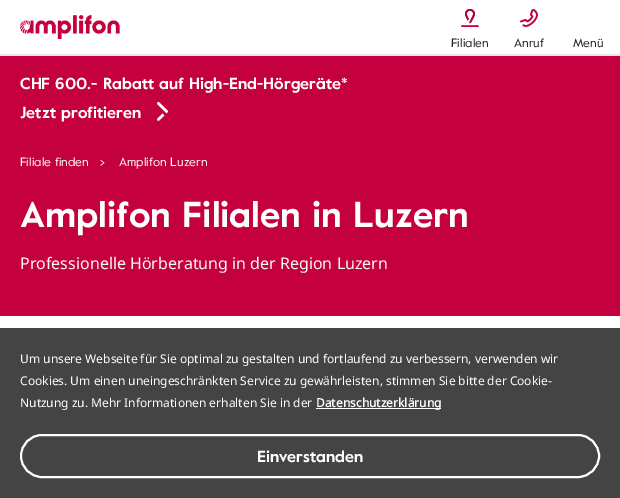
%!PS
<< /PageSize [620 498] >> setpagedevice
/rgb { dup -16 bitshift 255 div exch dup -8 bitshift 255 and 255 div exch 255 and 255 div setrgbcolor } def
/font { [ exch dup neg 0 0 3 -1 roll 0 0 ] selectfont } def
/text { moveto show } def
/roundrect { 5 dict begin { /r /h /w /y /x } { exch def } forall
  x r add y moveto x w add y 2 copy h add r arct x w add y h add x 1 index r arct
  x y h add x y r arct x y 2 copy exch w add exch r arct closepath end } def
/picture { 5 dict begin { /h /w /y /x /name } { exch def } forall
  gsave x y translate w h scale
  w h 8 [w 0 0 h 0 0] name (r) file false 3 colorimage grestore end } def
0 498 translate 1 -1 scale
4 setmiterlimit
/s1 { /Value-Regular 12 font 16#222222 rgb } def
/s2 { /Value-Bold 16 font 16#FFFFFF rgb } def
/s3 { /Value-Regular 12 font 16#FFFFFF rgb } def
/s4 { /Value-Bold 36 font 16#FFFFFF rgb } def
/s5 { /NotoSans-Regular 16 font 16#F7F8F8 rgb } def
/s6 { /NotoSans-Regular 12 font 16#FFFFFF rgb } def
/s7 { /NotoSans-Bold 12 font 16#FFFFFF rgb } def
16#FFFFFF rgb
0 0 620 498 rectfill
(pic1.raw) 20 15 100 24 picture
(pic2.raw) 461 9 18 18 picture
s1
(Filialen) 451 47 text
(pic3.raw) 520 9 18 18 picture
(Anruf) 514 47 text
(Menü) 573 47 text
16#E6E7E9 rgb
0 54 620 2 rectfill
16#C5003E rgb
0 56 620 260 rectfill
s2
(CHF 600.- Rabatt auf High-End-Hörgeräte*) 20 89 text
(Jetzt profitieren) 20 118 text
(pic4.raw) 157 102 11 19 picture
s3
(Filiale finden) 20 166 text
(>) 100 167 text
(Amplifon Luzern) 119 166 text
s4
(Amplifon Filialen in Luzern) 20 227 text
s5
(Professionelle Hörberatung in der Region Luzern) 20 269 text
16#444444 rgb
0 328 620 170 rectfill
s6
(Um unsere Webseite für Sie optimal zu gestalten und fortlaufend zu verbessern, verwenden wir) 20 363 text
(Cookies. Um einen uneingeschränkten Service zu gewährleisten, stimmen Sie bitte der Cookie-) 20 385 text
(Nutzung zu. Mehr Informationen erhalten Sie in der) 20 407 text
316 408 125 1 rectfill
s7
(Datenschutzerklärung) 316 407 text
2 setlinewidth
21 435 578 42 21 roundrect stroke
s2
(Einverstanden) 257 462 text
showpage
